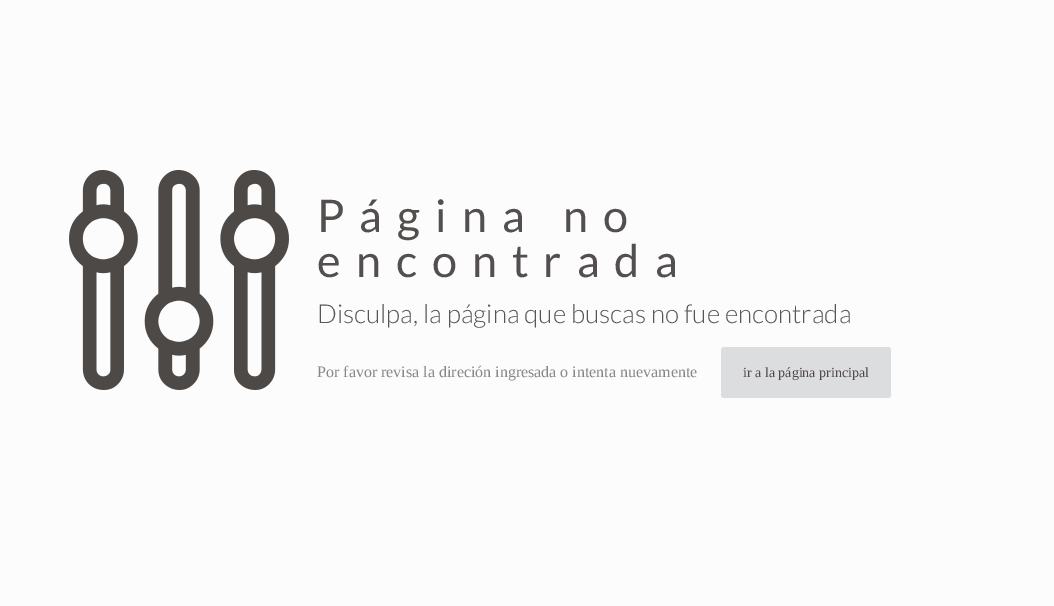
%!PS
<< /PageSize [1054 606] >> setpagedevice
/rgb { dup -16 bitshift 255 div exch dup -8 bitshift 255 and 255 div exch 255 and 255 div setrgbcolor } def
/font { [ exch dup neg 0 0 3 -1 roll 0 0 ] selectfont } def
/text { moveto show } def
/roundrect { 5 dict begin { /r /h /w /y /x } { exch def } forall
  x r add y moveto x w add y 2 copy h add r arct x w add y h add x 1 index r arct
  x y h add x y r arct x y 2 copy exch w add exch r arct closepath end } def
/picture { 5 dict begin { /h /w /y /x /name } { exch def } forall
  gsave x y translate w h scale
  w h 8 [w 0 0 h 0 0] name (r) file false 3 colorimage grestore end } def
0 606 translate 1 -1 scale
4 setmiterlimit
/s1 { /Lato-Light 26 font 16#575655 rgb } def
/s2 { /LiberationSerif-Regular 16 font 16#878787 rgb } def
/s3 { /LiberationSerif-Regular 14 font 16#524646 rgb } def
16#FCFCFC rgb
0 0 1054 606 rectfill
(pic1.raw) 69 170 220 220 picture
/Lato-Regular 45 font
16#544F4F rgb
317 232 moveto 15 0 (Página no) ashow
317 277 moveto 15 0 (encontrada) ashow
s1
(Disculpa, la página que buscas no fue encontrada) 317 323 text
s2
(Por favor revisa la direción ingresada o intenta nuevamente) 317 377 text
16#DBDDDF rgb
721 347 170 51 3 roundrect fill
s3
(ir a la página principal) 743 377 text
showpage
